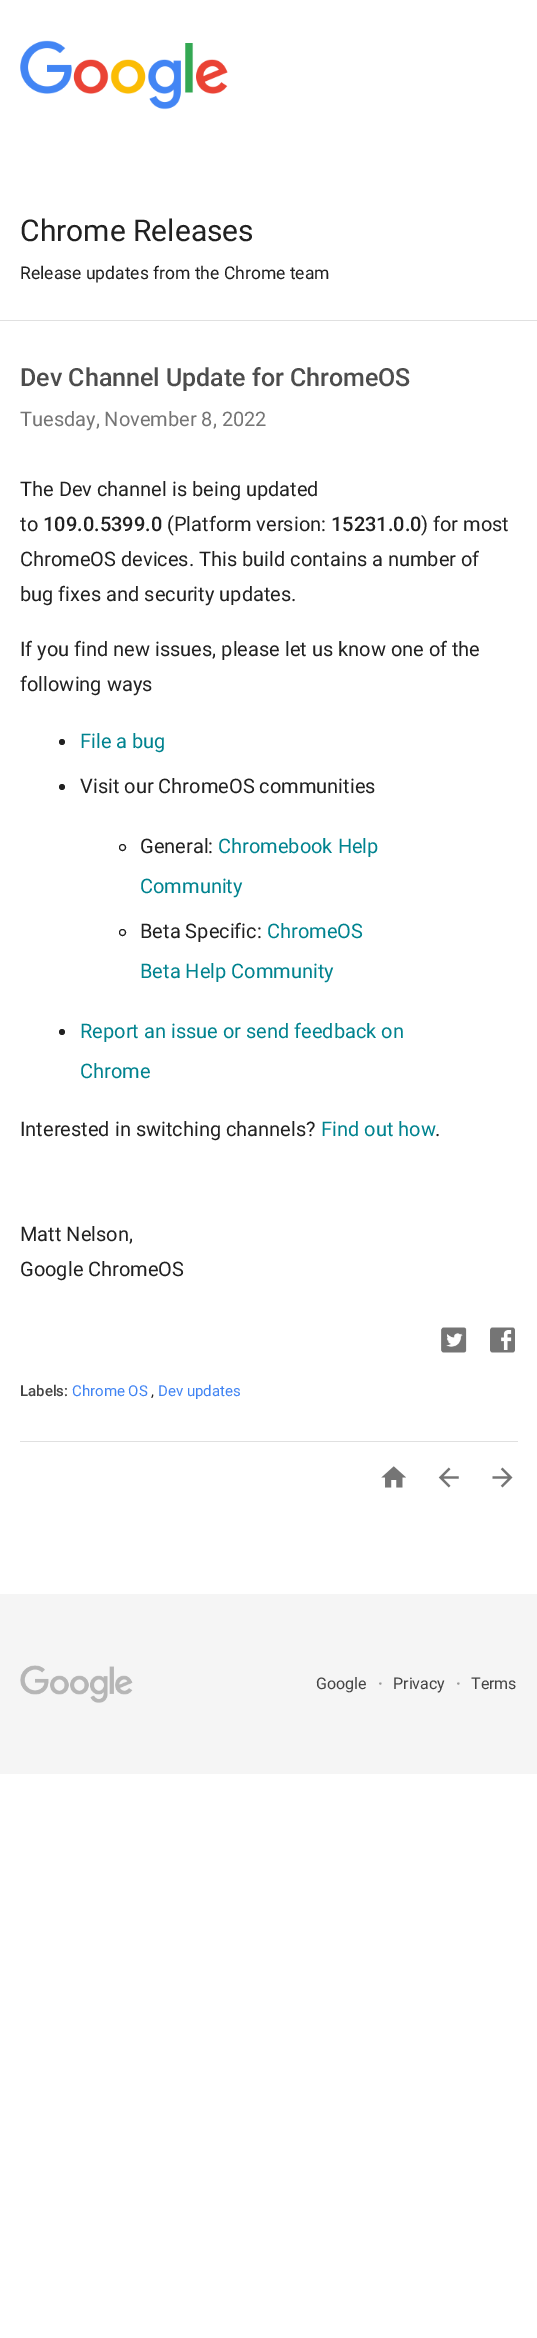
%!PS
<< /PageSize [537 2338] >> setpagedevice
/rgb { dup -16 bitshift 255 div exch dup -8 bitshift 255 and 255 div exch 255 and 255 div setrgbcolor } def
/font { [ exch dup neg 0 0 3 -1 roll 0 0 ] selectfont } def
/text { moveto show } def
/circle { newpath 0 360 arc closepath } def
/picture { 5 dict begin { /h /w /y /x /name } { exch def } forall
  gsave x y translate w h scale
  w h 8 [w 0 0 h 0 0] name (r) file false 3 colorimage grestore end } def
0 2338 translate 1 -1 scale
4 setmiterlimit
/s1 { /Roboto-Regular 30 font 16#212121 rgb } def
/s2 { /Roboto-Regular 17.5 font 16#212121 rgb } def
/s3 { /Roboto-Medium 25 font 16#4D4D4D rgb } def
/s4 { /Roboto-Regular 20 font 16#757575 rgb } def
/s5 { /Roboto-Regular 20 font 16#212121 rgb } def
/s6 { /Roboto-Medium 20 font 16#212121 rgb } def
/s7 { /Roboto-Regular 20 font 16#00838F rgb } def
/s8 { /Roboto-Medium 15 font 16#444444 rgb } def
/s9 { /Roboto-Regular 15 font 16#4184F3 rgb } def
/s10 { /Roboto-Regular 15 font 16#212121 rgb } def
/s11 { /Roboto-Regular 16 font 16#444444 rgb } def
/s12 { /Roboto-Bold 16 font 16#999999 rgb } def
16#FFFFFF rgb
0 0 537 2338 rectfill
16#E0E0E0 rgb
0 320 537 1 rectfill
(pic1.raw) 20 40 208 70 picture
s1
(Chrome Releases) 20 241 text
s2
(Release updates from the Chrome team) 20 279 text
s3
(Dev Channel Update for ChromeOS) 20 386 text
s4
(Tuesday, November 8, 2022) 20 426 text
s5
(The Dev channel is being updated) 20 496 text
(to) 20 531 text
s6
(109.0.5399.0) 43 531 text
s5
(\(Platform version:) 167 531 text
s6
(15231.0.0) 331 531 text
s5
(\) for most) 421 531 text
(ChromeOS devices. This build contains a number of) 20 566 text
(bug fixes and security updates.) 20 601 text
(If you find new issues, please let us know one of the) 20 656 text
(following ways) 20 691 text
62 742 3 circle fill
s7
(File a bug) 80 748 text
16#212121 rgb
62 787 3 circle fill
(Visit our ChromeOS communities) 80 793 text
122.5 847.5 3 circle stroke
(General:) 140 853 text
s7
(Chromebook Help) 218 853 text
(Community) 140 893 text
16#212121 rgb
122.5 932.5 3 circle stroke
(Beta Specific:) 140 938 text
s7
(ChromeOS) 267 938 text
(Beta Help Community) 140 978 text
16#212121 rgb
62 1032 3 circle fill
s7
(Report an issue or send feedback on) 80 1038 text
(Chrome) 80 1078 text
s5
(Interested in switching channels?) 20 1136 text
s7
(Find out how) 321 1136 text
s5
(.) 435 1136 text
(Matt Nelson,) 20 1241 text
(Google ChromeOS) 20 1276 text
(pic2.raw) 441 1327 26 26 picture
(pic3.raw) 490 1327 25 26 picture
s8
(Labels:) 20 1396 text
s9
(Chrome OS) 72 1396 text
s10
(,) 151 1396 text
s9
(Dev updates) 158 1396 text
16#E0E0E0 rgb
20 1441 498 1 rectfill
(pic4.raw) 381 1466 25 22 picture
(pic5.raw) 438 1467 21 21 picture
(pic6.raw) 492 1467 21 21 picture
16#F5F5F5 rgb
0 1594 537 180 rectfill
(pic7.raw) 20 1665 113 38 picture
s11
(Google) 316 1689 text
s12
(·) 378 1689 text
s11
(Privacy) 393 1689 text
s12
(·) 456 1689 text
s11
(Terms) 471 1689 text
showpage
